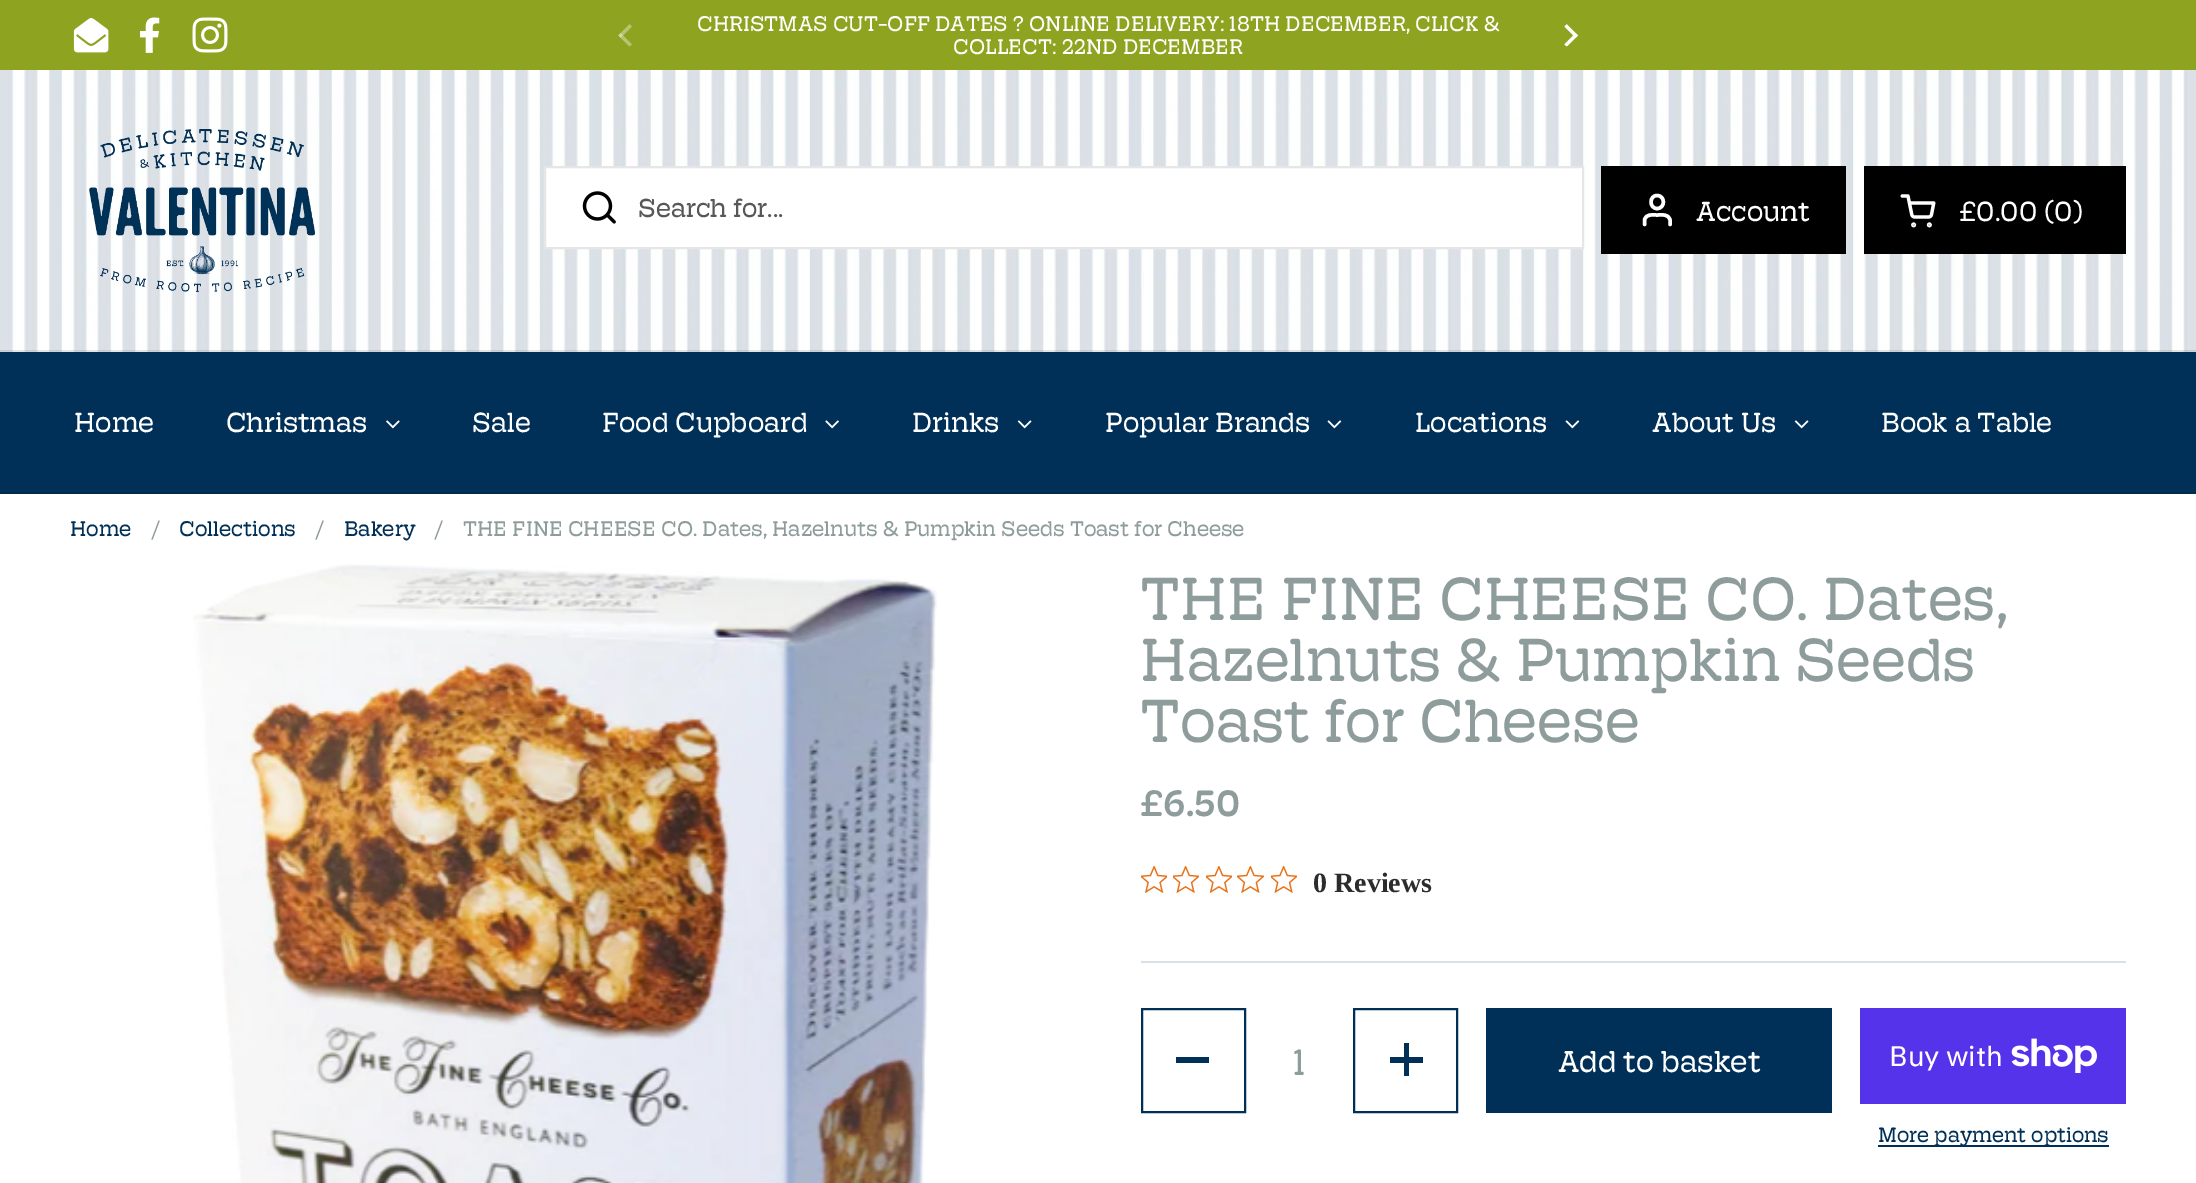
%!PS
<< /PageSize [2196 1183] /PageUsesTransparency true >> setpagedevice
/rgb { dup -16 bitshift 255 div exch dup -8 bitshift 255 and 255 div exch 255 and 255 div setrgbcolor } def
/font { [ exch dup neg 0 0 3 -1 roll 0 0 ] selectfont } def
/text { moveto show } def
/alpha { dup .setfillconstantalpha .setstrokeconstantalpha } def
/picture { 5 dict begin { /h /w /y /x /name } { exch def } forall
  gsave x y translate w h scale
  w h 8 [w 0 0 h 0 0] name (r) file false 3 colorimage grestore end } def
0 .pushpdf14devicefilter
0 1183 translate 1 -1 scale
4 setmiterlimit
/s1 { /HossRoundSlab-Regular 21.45 font 16#FFFFFF rgb } def
/s2 { /HossRoundSlab-Regular 26.25 font 16#575757 rgb } def
/s3 { /HossRoundSlab-Regular 28 font 16#FFFFFF rgb } def
/s4 { /HossRoundSlab-Regular 21.45 font 16#003057 rgb } def
/s5 { /HossRoundSlab-Regular 21.45 font 16#8E9C9C rgb } def
/s6 { /HossRoundSlab-Regular 61.25 font 16#8E9C9C rgb } def
/s7 { /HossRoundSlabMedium-Medium 37 font 16#8E9C9C rgb } def
/s8 { /LiberationSerif-Bold 28 font 16#2C2C2C rgb } def
/s9 { /HossRoundSlab-Regular 37 font 16#8E9C9C rgb } def
/s10 { /HossRoundSlab-Regular 30.5 font 16#FFFFFF rgb } def
/s11 { /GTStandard-Regular 28 font 16#FFFFFF rgb } def
/s12 { /HossRoundSlab-Regular 21 font 16#003057 rgb } def
16#FFFFFF rgb
0 0 2196 1183 rectfill
16#8EA421 rgb
0 0 2196 70 rectfill
(pic1.raw) 73 18 36 35 picture
(pic2.raw) 140 17 20 36 picture
(pic3.raw) 192 17 36 36 picture
(pic4.raw) 618 24 14 23 picture
s1
(CHRISTMAS CUT-OFF DATES ? ONLINE DELIVERY: 18TH DECEMBER, CLICK &) 697 31 text
(COLLECT: 22ND DECEMBER) 953 54 text
(pic5.raw) 1564 24 14 23 picture
(pic6.raw) 0 70 2196 282 picture
0.1 alpha
16#000000 rgb
0 350 2196 2 rectfill
1 alpha
(pic7.raw) 89 129 226 163 picture
16#FFFFFF rgb
545 167 moveto 1583 167 lineto 1583 248 lineto 545 248 lineto closepath gsave fill grestore
16#E6E6E6 rgb
2 setlinewidth
stroke
(pic8.raw) 582 191 34 33 picture
s2
(Search for...) 638 217 text
16#000000 rgb
1601 166 245 88 rectfill
16#FFFFFF rgb
3.5 setlinewidth
1 setlinecap
1 setlinejoin
1670 224.5 moveto 1670 220 lineto 1668.5 213.5 1662 215 1657 215 curveto 1652.5 215 1646 213.5 1644.5 220 curveto 1644.5 224.5 lineto 1657 208.5 moveto 1665.5 208.5 1665.5 195.5 1657 195.5 curveto 1649 195.5 1649 208.5 1657 208.5 curveto closepath stroke
s3
(Account) 1696 221 text
16#000000 rgb
1864 166 262 88 rectfill
(pic9.raw) 1900 194 36 34 picture
s3
(£0.00 \(0\)) 1959 221 text
16#003057 rgb
0 352 2196 140 rectfill
16#002B4E rgb
0 492 2196 2 rectfill
s3
(Home) 74 432 text
(Christmas) 226 432 text
(pic10.raw) 386 420 14 9 picture
(Sale) 472 432 text
(Food Cupboard) 602 432 text
(pic11.raw) 825 420 14 9 picture
(Drinks) 912 432 text
(pic12.raw) 1017 420 15 9 picture
(Popular Brands) 1105 432 text
(pic13.raw) 1327 420 15 9 picture
(Locations) 1415 432 text
(pic13.raw) 1565 420 15 9 picture
(About Us) 1652 432 text
(pic12.raw) 1794 420 15 9 picture
(Book a Table) 1881 432 text
s4
(Home) 70 536 text
s5
(/) 151 536 text
s4
(Collections) 179 536 text
s5
(/) 315 536 text
s4
(Bakery) 344 536 text
s5
(/) 434 536 text
(THE FINE CHEESE CO. Dates, Hazelnuts & Pumpkin Seeds Toast for Cheese) 463 536 text
(pic14.raw) 193 564 744 619 picture
s6
(THE FINE CHEESE CO. Dates,) 1140 620 text
(Hazelnuts & Pumpkin Seeds) 1140 681 text
(Toast for Cheese) 1140 742 text
s7
(£6.50) 1140 816 text
(pic15.raw) 1141 866 26 27 picture
(pic16.raw) 1173 866 26 27 picture
(pic17.raw) 1206 866 26 27 picture
(pic18.raw) 1237 866 27 27 picture
(pic16.raw) 1271 866 26 27 picture
s8
(0 Reviews) 1313 892 text
16#D9E0E6 rgb
1141 961 985 2 rectfill
16#003057 rgb
2 setlinewidth
0 setlinecap
0 setlinejoin
1142 1009 103 103 rectstroke
1176 1057 33 6 rectfill
s9
(1) 1293 1075 text
16#003057 rgb
1354 1009 103 103 rectstroke
1404 1043 5 33 rectfill
1390 1057 33 6 rectfill
1486 1008 346 105 rectfill
s10
(Add to basket) 1558 1072 text
16#5433EB rgb
1860 1008 266 96 rectfill
s11
(Buy with) 1889 1066 text
(pic19.raw) 2011 1038 86 35 picture
16#003057 rgb
1878 1145 231 2 rectfill
s12
(More payment options) 1878 1142 text
.poppdf14devicefilter showpage
